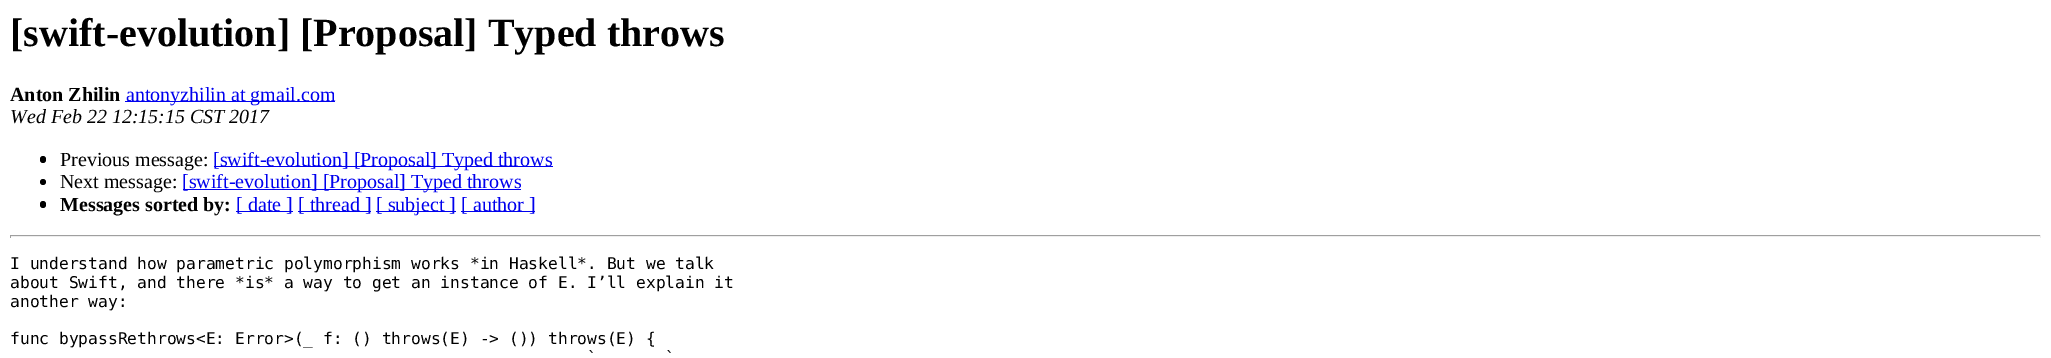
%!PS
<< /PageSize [2051 358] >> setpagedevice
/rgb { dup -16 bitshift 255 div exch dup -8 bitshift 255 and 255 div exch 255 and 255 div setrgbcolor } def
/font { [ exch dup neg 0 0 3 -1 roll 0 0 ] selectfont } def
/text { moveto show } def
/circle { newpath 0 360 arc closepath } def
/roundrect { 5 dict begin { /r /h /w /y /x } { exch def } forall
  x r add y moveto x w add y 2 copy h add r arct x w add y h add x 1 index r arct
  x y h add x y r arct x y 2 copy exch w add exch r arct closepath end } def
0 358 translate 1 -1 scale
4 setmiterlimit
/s1 { /LiberationSerif-Bold 40 font 16#000000 rgb } def
/s2 { /LiberationSerif-Bold 20 font 16#000000 rgb } def
/s3 { /LiberationSerif-Regular 20 font 16#0000EE rgb } def
/s4 { /LiberationSerif-Italic 20 font 16#000000 rgb } def
/s5 { /LiberationSerif-Regular 20 font 16#000000 rgb } def
/s6 { /DejaVuSansMono-Regular 16.25 font 16#000000 rgb } def
16#FFFFFF rgb
0 0 2051 358 rectfill
s1
([swift-evolution] [Proposal] Typed throws) 10 46 text
s2
(Anton Zhilin) 10 101 text
16#0000EE rgb
125 101 210 1 rectfill
s3
(antonyzhilin at gmail.com) 126 101 text
s4
(Wed Feb 22 12:15:15 CST 2017) 10 123 text
40 156 6 7 3 roundrect fill
s5
(Previous message:) 60 166 text
16#0000EE rgb
214 166 339 1 rectfill
([swift-evolution] [Proposal] Typed throws) 213 166 text
16#000000 rgb
43 182 3 circle fill
(Next message:) 60 188 text
16#0000EE rgb
183 189 338 1 rectfill
([swift-evolution] [Proposal] Typed throws) 182 188 text
16#000000 rgb
40 201 6 7 3 roundrect fill
s2
(Messages sorted by:) 60 211 text
16#0000EE rgb
236 211 57 1 rectfill
s3
([ date ]) 236 211 text
298 211 73 1 rectfill
([ thread ]) 298 211 text
376 211 80 1 rectfill
([ subject ]) 376 211 text
461 211 74 1 rectfill
([ author ]) 461 211 text
16#9F9F9F rgb
10 235 2031 1 rectfill
16#EEEEEE rgb
2040 235 1 3 rectfill
10 236 2031 1 rectfill
16#9F9F9F rgb
10 235 1 3 rectfill
s6
(I understand how parametric polymorphism works *in Haskell*. But we talk) 10 269 text
(about Swift, and there *is* a way to get an instance of E. I’ll explain it) 10 288 text
(another way:) 10 307 text
(func bypassRethrows<E: Error>\(_ f: \(\) throws\(E\) -> \(\)\) throws\(E\) {) 10 344 text
(`) 587 363 text
(`) 665 363 text
showpage
